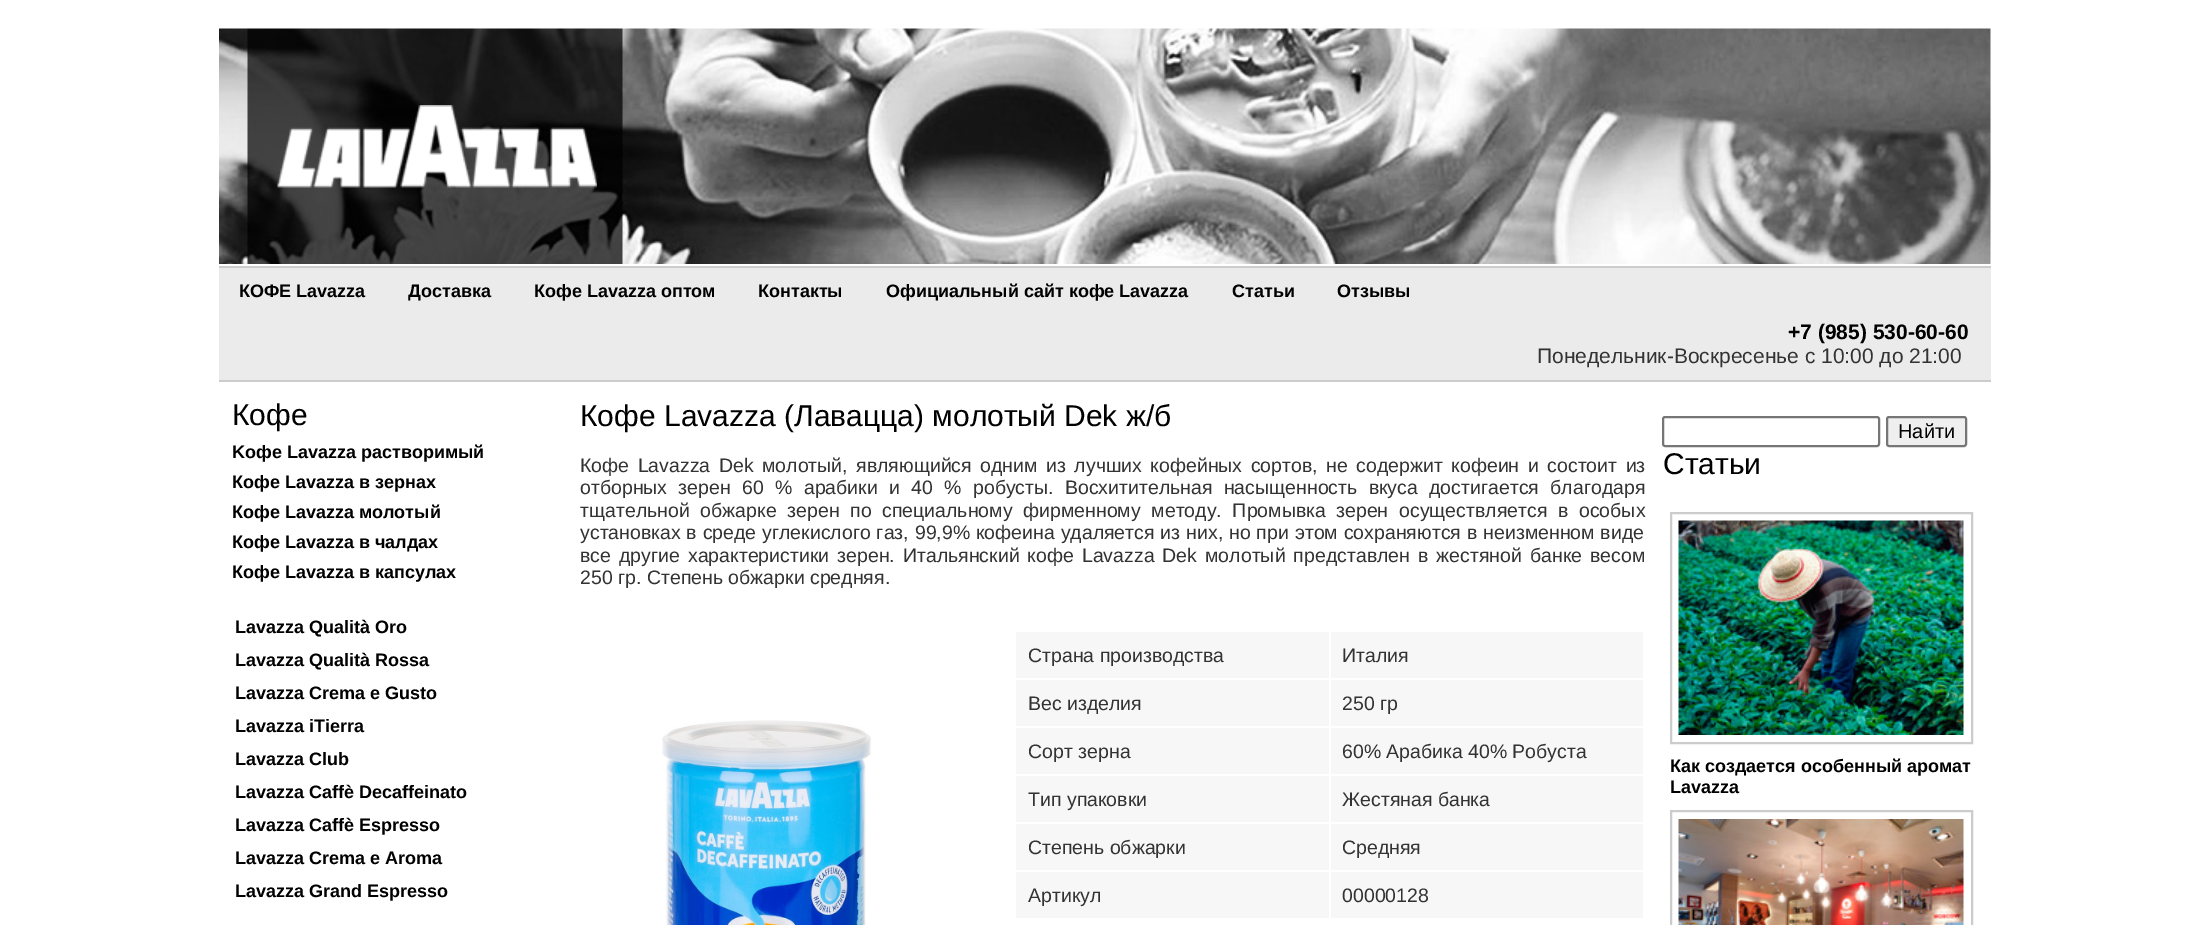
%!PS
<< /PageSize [2208 925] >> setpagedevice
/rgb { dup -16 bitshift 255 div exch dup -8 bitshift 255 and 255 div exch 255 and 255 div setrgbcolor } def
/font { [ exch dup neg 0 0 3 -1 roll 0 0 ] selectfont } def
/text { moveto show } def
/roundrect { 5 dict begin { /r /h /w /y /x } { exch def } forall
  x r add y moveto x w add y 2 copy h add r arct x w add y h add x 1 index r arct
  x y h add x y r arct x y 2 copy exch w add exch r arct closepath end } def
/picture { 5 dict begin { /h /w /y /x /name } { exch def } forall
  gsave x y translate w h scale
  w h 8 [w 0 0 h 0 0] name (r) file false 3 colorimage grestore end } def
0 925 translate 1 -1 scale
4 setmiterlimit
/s1 { /LiberationSans-Bold 18 font 16#000000 rgb } def
/s2 { /LiberationSans-Bold 21 font 16#000000 rgb } def
/s3 { /LiberationSans-Regular 21 font 16#333333 rgb } def
/s4 { /LiberationSans-Regular 30 font 16#000000 rgb } def
/s5 { /LiberationSans-Regular 19.5 font 16#333333 rgb } def
/s6 { /LiberationSans-Regular 20 font 16#000000 rgb } def
16#FFFFFF rgb
0 0 2208 925 rectfill
(pic1.raw) 219 28 1772 236 picture
(pic2.raw) 277 105 320 83 picture
16#EBEBEB rgb
219 268 1772 112 rectfill
16#CCCCCC rgb
219 266 1772 2 rectfill
219 380 1772 2 rectfill
s1
(КОФЕ Lavazza) 239 297 text
(Доставка) 408 297 text
(Кофе Lavazza оптом) 534 297 text
(Контакты) 758 297 text
(Официальный сайт кофе Lavazza) 886 297 text
(Статьи) 1232 297 text
(Отзывы) 1337 297 text
s2
(+7 \(985\) 530-60-60) 1788 339 text
s3
(Понедельник-Воскресенье с 10:00 до 21:00) 1537 363 text
s4
(Кофе) 232 425 text
s1
(Kофе Lavazza растворимый) 232 458 text
(Кофе Lavazza в зернах) 232 488 text
(Кофе Lavazza молотый) 232 518 text
(Кофе Lavazza в чалдах) 232 548 text
(Кофе Lavazza в капсулах) 232 578 text
(Lavazza Qualità Oro) 235 633 text
(Lavazza Qualità Rossa) 235 666 text
(Lavazza Crema e Gusto) 235 699 text
(Lavazza iTierra) 235 732 text
(Lavazza Club) 235 765 text
(Lavazza Caffè Decaffeinato) 235 798 text
(Lavazza Caffè Espresso) 235 831 text
(Lavazza Crema e Aroma) 235 864 text
(Lavazza Grand Espresso) 235 897 text
s4
(Кофе Lavazza \(Лавацца\) молотый Dek ж/б) 580 426 text
/LiberationSans-Regular 19.5 font
16#333333 rgb
580 472 moveto 3.1 0 32 (Кофе Lavazza Dek молотый, являющийся одним из лучших кофейных сортов, не содержит кофеин и состоит из) widthshow
580 494 moveto 5.9 0 32 (отборных зерен 60 % арабики и 40 % робусты. Восхитительная насыщенность вкуса достигается благодаря) widthshow
580 517 moveto 5.25 0 32 (тщательной обжарке зерен по специальному фирменному методу. Промывка зерен осуществляется в особых) widthshow
580 539 moveto 0.5 0 32 (установках в среде углекислого газ, 99,9% кофеина удаляется из них, но при этом сохраняются в неизменном виде) widthshow
580 562 moveto 2.6 0 32 (все другие характеристики зерен. Итальянский кофе Lavazza Dek молотый представлен в жестяной банке весом) widthshow
(250 гр. Степень обжарки средняя.) 580 584 text
(pic3.raw) 662 720 209 205 picture
16#F7F7F7 rgb
1016 632 313 46 rectfill
s5
(Страна производства) 1028 662 text
16#F7F7F7 rgb
1331 632 312 46 rectfill
s5
(Италия) 1342 662 text
16#F7F7F7 rgb
1016 680 313 46 rectfill
s5
(Вес изделия) 1028 710 text
16#F7F7F7 rgb
1331 680 312 46 rectfill
s5
(250 гр) 1342 710 text
16#F7F7F7 rgb
1016 728 313 46 rectfill
s5
(Сорт зерна) 1028 758 text
16#F7F7F7 rgb
1331 728 312 46 rectfill
s5
(60% Арабика 40% Робуста) 1342 758 text
16#F7F7F7 rgb
1016 776 313 46 rectfill
s5
(Тип упаковки) 1028 806 text
16#F7F7F7 rgb
1331 776 312 46 rectfill
s5
(Жестяная банка) 1342 806 text
16#F7F7F7 rgb
1016 824 313 46 rectfill
s5
(Степень обжарки) 1028 854 text
16#F7F7F7 rgb
1331 824 312 46 rectfill
s5
(Средняя) 1342 854 text
16#F7F7F7 rgb
1016 872 313 46 rectfill
s5
(Артикул) 1028 902 text
16#F7F7F7 rgb
1331 872 312 46 rectfill
s5
(00000128) 1342 902 text
16#767676 rgb
2 setlinewidth
1663 417 216 29 2 roundrect stroke
16#EFEFEF rgb
1887 417 79 29 2 roundrect gsave fill grestore
16#767676 rgb
stroke
s6
(Найти) 1898 438 text
s4
(Статьи) 1663 474 text
16#CCCCCC rgb
1671 513 301 230 rectstroke
(pic4.raw) 1678 520 286 215 picture
s1
(Как создается особенный аромат) 1670 772 text
(Lavazza) 1670 793 text
16#CCCCCC rgb
1671 811 301 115 rectstroke
(pic5.raw) 1678 819 286 106 picture
showpage
